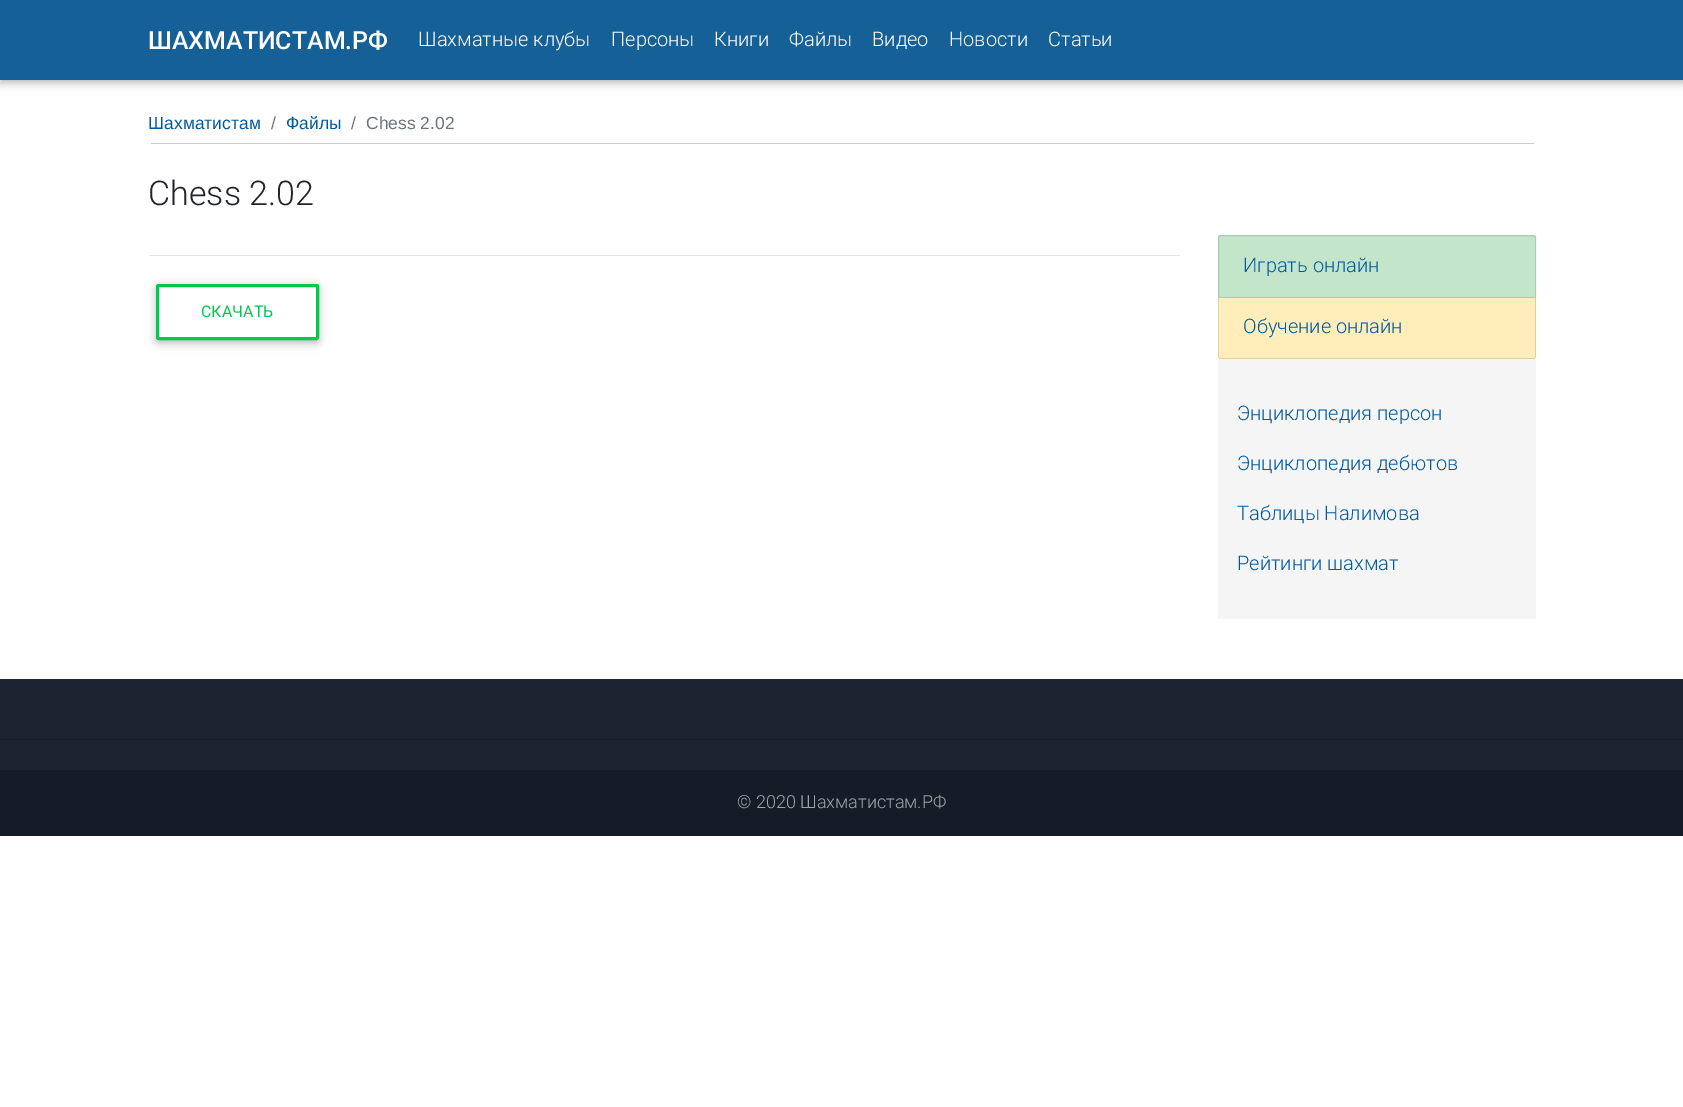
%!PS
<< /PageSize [1683 1107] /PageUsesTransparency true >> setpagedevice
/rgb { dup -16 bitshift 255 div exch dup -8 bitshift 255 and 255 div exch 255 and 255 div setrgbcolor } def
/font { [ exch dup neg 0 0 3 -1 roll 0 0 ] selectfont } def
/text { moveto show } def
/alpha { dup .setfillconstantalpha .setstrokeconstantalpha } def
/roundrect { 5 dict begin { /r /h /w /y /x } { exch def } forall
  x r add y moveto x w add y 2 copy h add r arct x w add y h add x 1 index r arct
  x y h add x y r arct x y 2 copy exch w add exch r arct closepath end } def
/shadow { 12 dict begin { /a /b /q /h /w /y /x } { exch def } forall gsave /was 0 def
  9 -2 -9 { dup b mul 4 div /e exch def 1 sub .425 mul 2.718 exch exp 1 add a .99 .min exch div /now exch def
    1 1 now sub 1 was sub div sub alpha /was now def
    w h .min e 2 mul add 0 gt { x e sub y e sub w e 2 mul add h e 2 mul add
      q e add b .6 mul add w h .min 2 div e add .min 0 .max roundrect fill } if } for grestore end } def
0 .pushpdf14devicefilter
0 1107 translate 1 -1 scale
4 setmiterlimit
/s1 { /Roboto-Medium 25 font 16#FFFFFF rgb } def
/s2 { /Roboto-Light 20 font 16#FFFFFF rgb } def
/s3 { /LiberationSans-Regular 17.5 font 16#005AA0 rgb } def
/s4 { /LiberationSans-Regular 17.5 font 16#6C757D rgb } def
/s5 { /Roboto-Light 34 font 16#212529 rgb } def
/s6 { /Roboto-Regular 16 font 16#00C851 rgb } def
/s7 { /Roboto-Light 20 font 16#005AA0 rgb } def
/s8 { /Roboto-Light 18 font 16#A2A4A9 rgb } def
16#FFFFFF rgb
0 0 1683 1107 rectfill
16#000000 rgb
0 3 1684 80 0 6 0.12 shadow
0 3 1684 80 0 3 0.16 shadow
16#156097 rgb
0 0 1683 80 rectfill
s1
(ШАХМАТИСТАМ.РФ) 148 49 text
s2
(Шахматные клубы) 418 46 text
(Персоны) 611 46 text
(Книги) 714 46 text
(Файлы) 789 46 text
(Видео) 872 46 text
(Новости) 949 46 text
(Статьи) 1048 46 text
16#CCCCCC rgb
151 143 1383 1 rectfill
s3
(Шахматистам) 148 129 text
s4
(/) 271 129 text
s3
(Файлы) 286 129 text
s4
(/) 351 129 text
(Chess 2.02) 366 129 text
s5
(Chess 2.02) 148 205 text
16#E6E6E6 rgb
149 255 1031 1 rectfill
gsave
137 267 moveto 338 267 lineto 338 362 lineto 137 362 lineto closepath 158.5 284 moveto 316.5 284 lineto 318 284 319 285 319 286.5 curveto 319 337.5 lineto 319 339 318 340 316.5 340 curveto 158.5 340 lineto 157 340 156 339 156 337.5 curveto 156 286.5 lineto 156 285 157 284 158.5 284 curveto closepath eoclip newpath
16#000000 rgb
156 286 163 57 2.5 6 0.12 shadow
grestore
gsave
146 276 moveto 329 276 lineto 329 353 lineto 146 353 lineto closepath 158.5 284 moveto 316.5 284 lineto 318 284 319 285 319 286.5 curveto 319 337.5 lineto 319 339 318 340 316.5 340 curveto 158.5 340 lineto 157 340 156 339 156 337.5 curveto 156 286.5 lineto 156 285 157 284 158.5 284 curveto closepath eoclip newpath
16#000000 rgb
156 286 163 57 2.5 3 0.16 shadow
grestore
16#00C851 rgb
3 setlinewidth
157.5 285.5 160 53 1 roundrect stroke
s6
(СКАЧАТЬ) 201 317 text
16#C3E6CB rgb
1220.5 235 moveto 1533.5 235 lineto 1535 235 1536 236 1536 237.5 curveto 1536 298 lineto 1218 298 lineto 1218 237.5 lineto 1218 236 1219 235 1220.5 235 curveto closepath fill
0.12 alpha
16#000000 rgb
1 setlinewidth
1220.5 235.5 moveto 1533.5 235.5 lineto 1534.5 235.5 1535.5 236.5 1535.5 237.5 curveto 1535.5 297.5 lineto 1218.5 297.5 lineto 1218.5 237.5 lineto 1218.5 236.5 1219.5 235.5 1220.5 235.5 curveto closepath stroke
1 alpha
s7
(Играть онлайн) 1243 272 text
16#FFEEBA rgb
1218 298 moveto 1536 298 lineto 1536 356.5 lineto 1536 358 1535 359 1533.5 359 curveto 1220.5 359 lineto 1219 359 1218 358 1218 356.5 curveto closepath fill
0.12 alpha
16#000000 rgb
1535 298 1 60 rectfill
1219 358 316 1 rectfill
1218 298 1 60 rectfill
1 alpha
s7
(Обучение онлайн) 1243 333 text
16#F5F5F5 rgb
1218 359 318 260 rectfill
s7
(Энциклопедия персон) 1237 420 text
(Энциклопедия дебютов) 1237 470 text
(Таблицы Налимова) 1237 520 text
(Рейтинги шахмат) 1237 570 text
16#1C2331 rgb
0 679 1683 91 rectfill
16#19202C rgb
0 739 1683 1 rectfill
16#161C27 rgb
0 770 1683 66 rectfill
s8
(© 2020 Шахматистам.РФ) 737 808 text
.poppdf14devicefilter showpage
